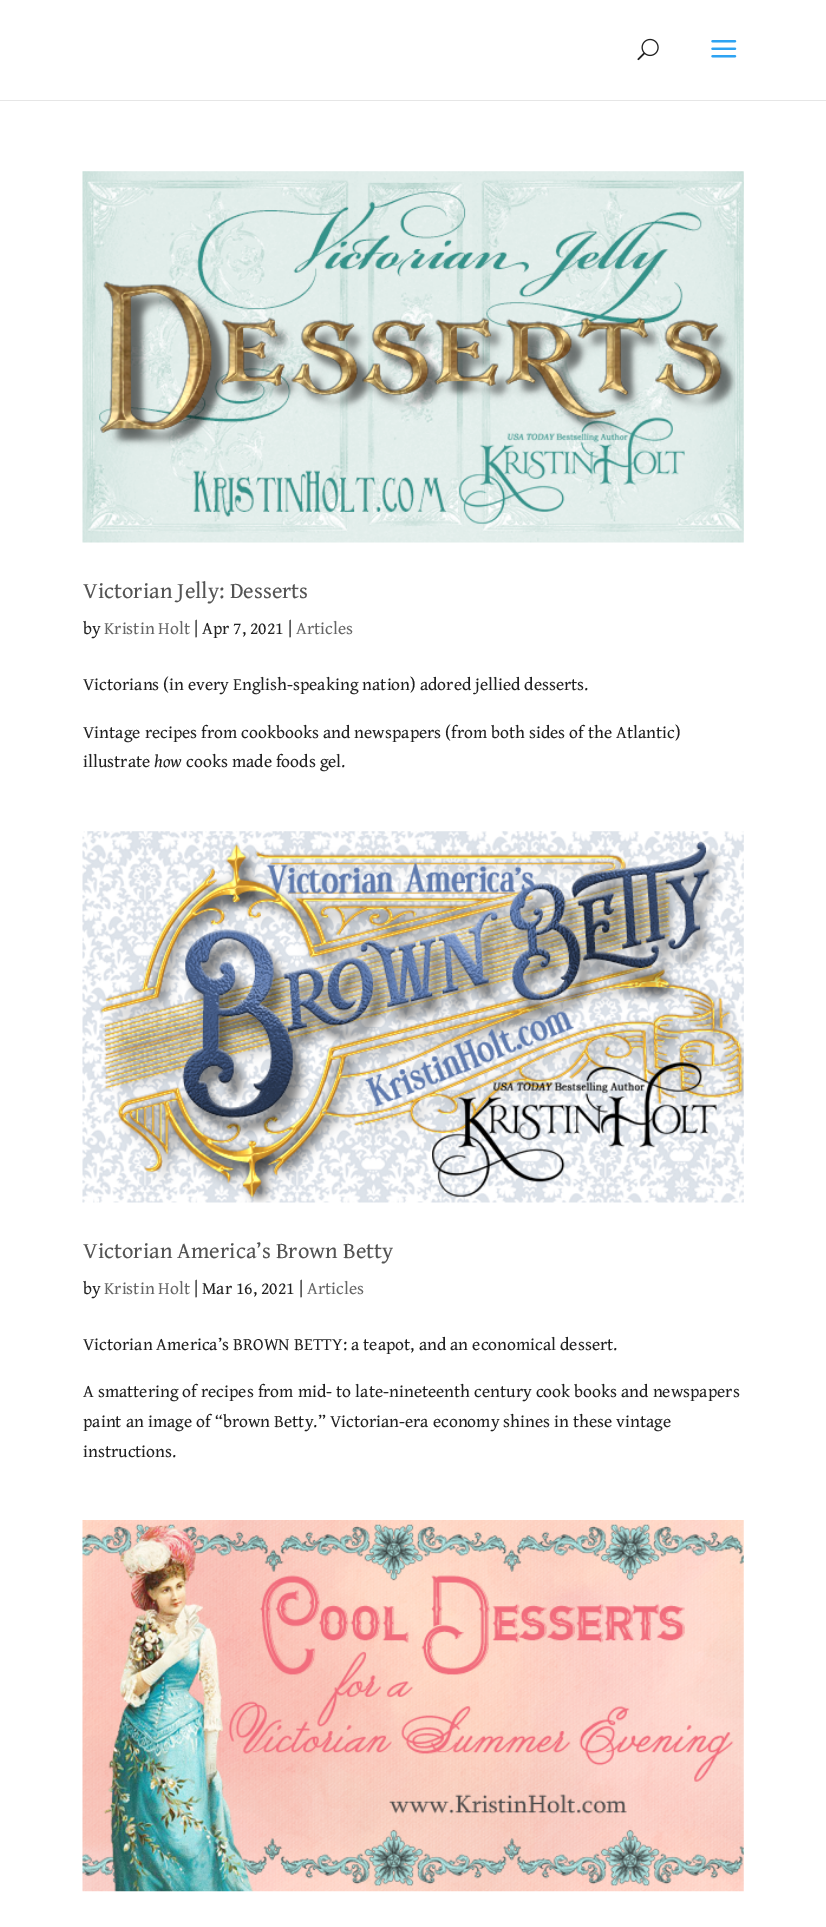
%!PS
<< /PageSize [826 1927] >> setpagedevice
/rgb { dup -16 bitshift 255 div exch dup -8 bitshift 255 and 255 div exch 255 and 255 div setrgbcolor } def
/font { [ exch dup neg 0 0 3 -1 roll 0 0 ] selectfont } def
/text { moveto show } def
/picture { 5 dict begin { /h /w /y /x /name } { exch def } forall
  gsave x y translate w h scale
  w h 8 [w 0 0 h 0 0] name (r) file false 3 colorimage grestore end } def
0 1927 translate 1 -1 scale
4 setmiterlimit
/s1 { /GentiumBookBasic-Regular 22.5 font 16#545454 rgb } def
/s2 { /GentiumBookBasic-Regular 17.5 font 16#212121 rgb } def
/s3 { /GentiumBookBasic-Regular 17.5 font 16#666666 rgb } def
/s4 { /GentiumBookBasic-Italic 17.5 font 16#212121 rgb } def
16#FFFFFF rgb
0 0 826 1927 rectfill
16#E6E6E6 rgb
0 100 826 1 rectfill
(pic1.raw) 637 38 22 23 picture
(pic2.raw) 711 40 26 18 picture
(pic3.raw) 82 171 662 372 picture
s1
(Victorian Jelly: Desserts) 83 598 text
s2
(by) 83 634 text
s3
(Kristin Holt) 104 634 text
s2
(| Apr 7, 2021 |) 194 634 text
s3
(Articles) 296 634 text
s2
(Victorians \(in every English-speaking nation\) adored jellied desserts.) 83 690 text
(Vintage recipes from cookbooks and newspapers \(from both sides of the Atlantic\)) 83 738 text
(illustrate) 83 767 text
s4
(how) 154 767 text
s2
(cooks made foods gel.) 186 767 text
(pic4.raw) 82 831 662 372 picture
s1
(Victorian America’s Brown Betty) 83 1258 text
s2
(by) 83 1294 text
s3
(Kristin Holt) 104 1294 text
s2
(| Mar 16, 2021 |) 194 1294 text
s3
(Articles) 307 1294 text
s2
(Victorian America’s BROWN BETTY: a teapot, and an economical dessert.) 83 1350 text
(A smattering of recipes from mid- to late-nineteenth century cook books and newspapers) 83 1397 text
(paint an image of “brown Betty.” Victorian-era economy shines in these vintage) 83 1427 text
(instructions.) 83 1457 text
(pic5.raw) 82 1520 662 372 picture
showpage
